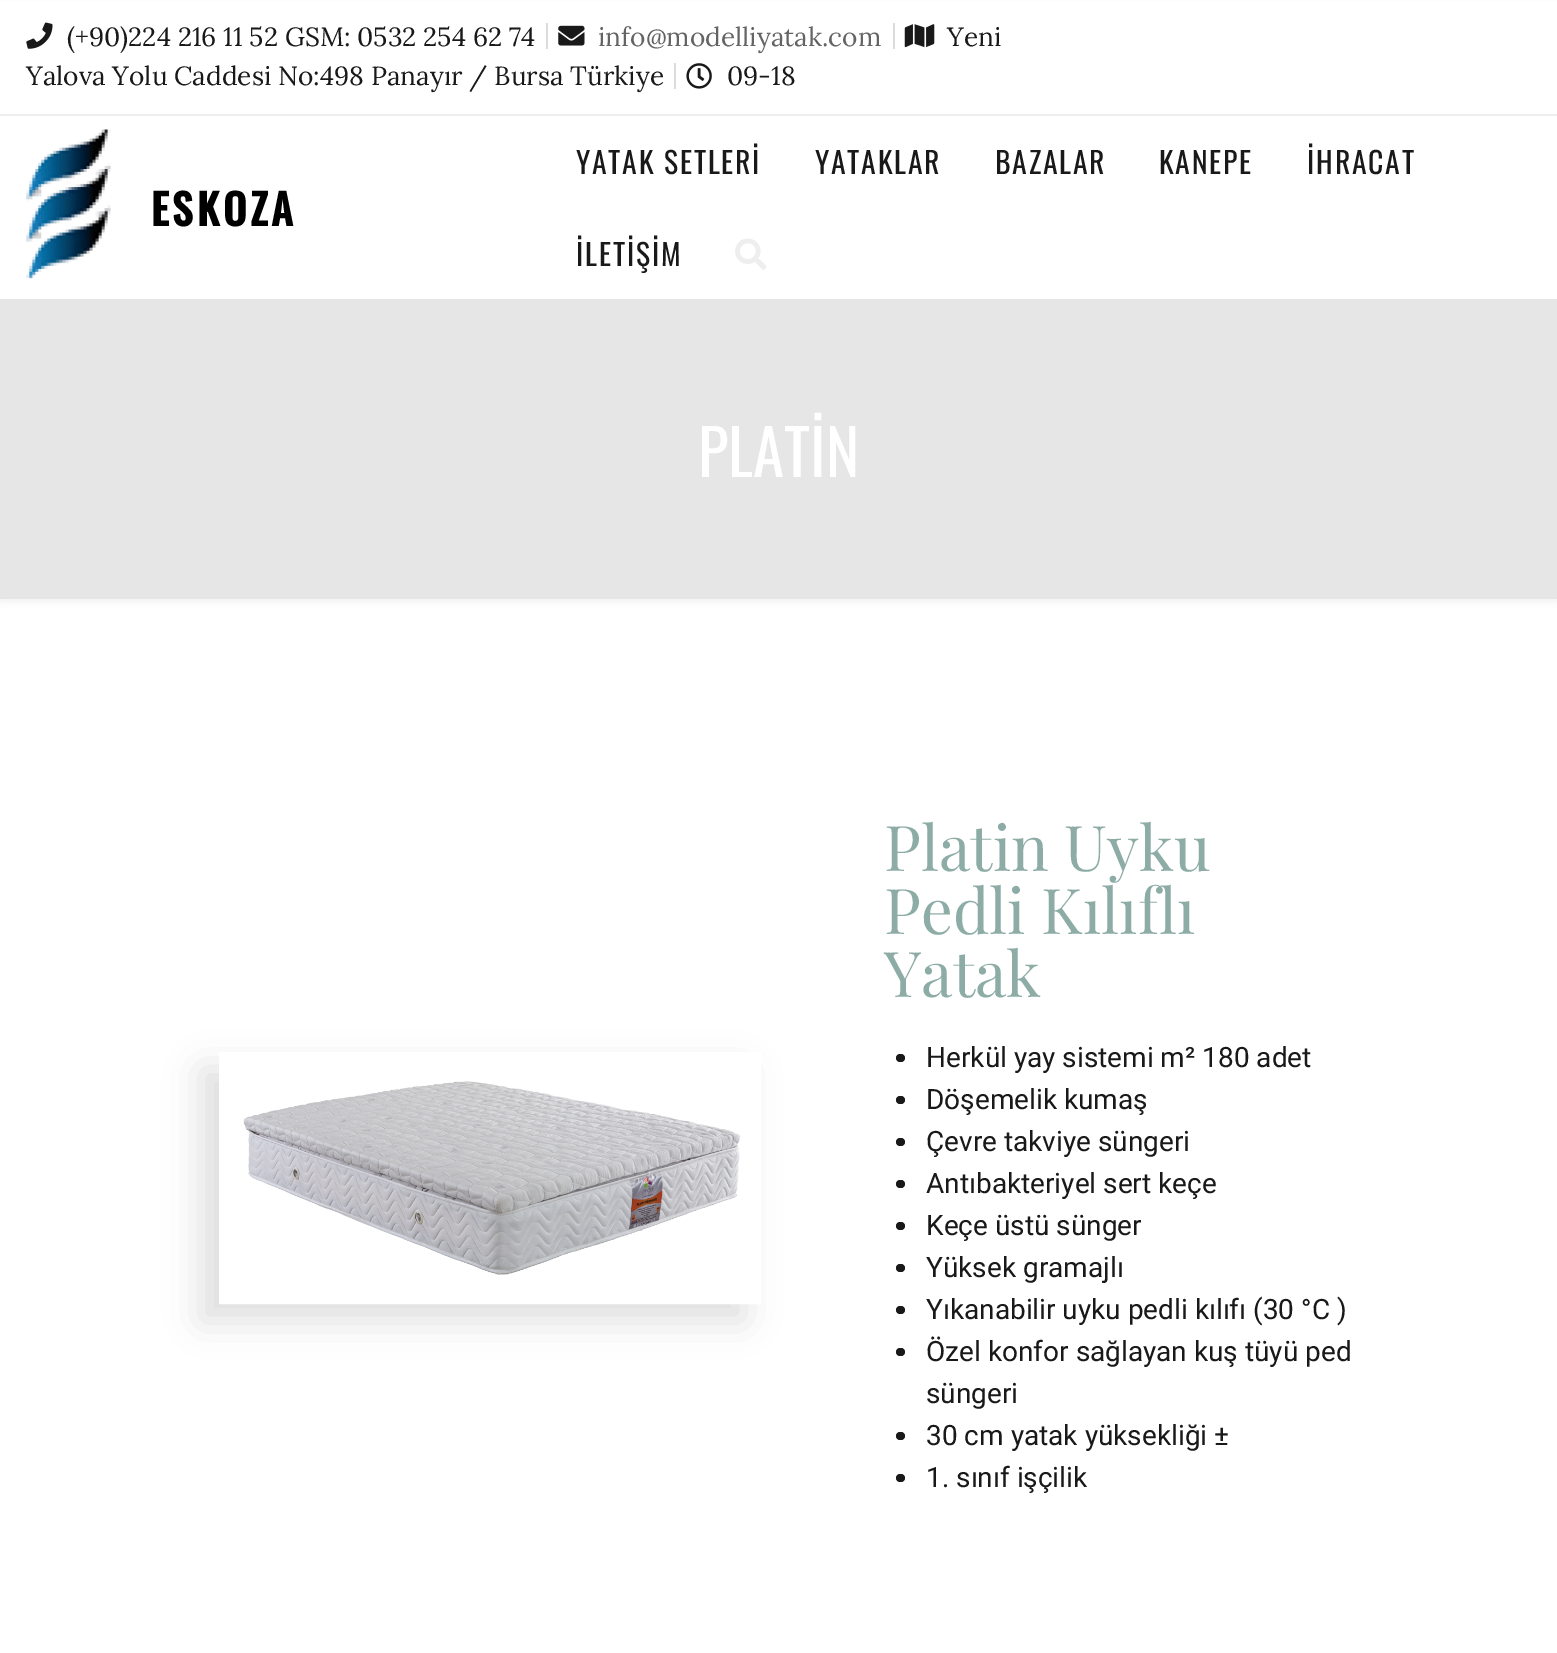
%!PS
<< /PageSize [1557 1653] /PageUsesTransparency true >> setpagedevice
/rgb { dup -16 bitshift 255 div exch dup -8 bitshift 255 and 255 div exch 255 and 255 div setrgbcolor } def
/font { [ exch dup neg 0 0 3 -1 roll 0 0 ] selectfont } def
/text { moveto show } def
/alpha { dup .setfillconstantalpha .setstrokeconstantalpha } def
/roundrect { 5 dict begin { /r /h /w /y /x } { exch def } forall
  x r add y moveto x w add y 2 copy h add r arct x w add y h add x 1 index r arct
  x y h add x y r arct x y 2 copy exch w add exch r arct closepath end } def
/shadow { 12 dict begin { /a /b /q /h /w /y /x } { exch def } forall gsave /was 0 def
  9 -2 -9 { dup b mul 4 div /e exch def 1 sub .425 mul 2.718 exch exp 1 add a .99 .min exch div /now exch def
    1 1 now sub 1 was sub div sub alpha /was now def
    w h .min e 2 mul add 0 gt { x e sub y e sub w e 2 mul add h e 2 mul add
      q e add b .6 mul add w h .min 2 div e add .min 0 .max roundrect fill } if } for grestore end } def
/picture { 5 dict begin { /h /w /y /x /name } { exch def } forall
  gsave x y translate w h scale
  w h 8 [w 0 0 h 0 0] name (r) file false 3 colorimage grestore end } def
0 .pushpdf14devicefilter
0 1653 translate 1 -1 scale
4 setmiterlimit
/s1 { /Lora-Regular 26.25 font 16#191919 rgb } def
/s2 { /Lora-Regular 26.25 font 16#656464 rgb } def
/s3 { /Oswald-Regular 63 font 16#FFFFFF rgb } def
/s4 { /PlayfairDisplay-Regular 63 font 16#8DACA6 rgb } def
/s5 { /Roboto-Regular 28 font 16#191919 rgb } def
16#FFFFFF rgb
0 0 1557 1653 rectfill
16#F2F2F2 rgb
0 4 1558 598 0 3.5 1 shadow
16#FFFFFF rgb
0 1 1557 298 rectfill
16#EEEEEE rgb
0 114 1557 2 rectfill
(pic1.raw) 26 22 27 27 picture
s1
(\(+90\)224 216 11 52 GSM: 0532 254 62 74) 67 46 text
16#D9DDDD rgb
893 23 2 26 rectfill
(pic2.raw) 904 24 31 24 picture
s1
(Yeni) 947 46 text
(Yalova Yolu Caddesi No:498 Panayır / Bursa Türkiye) 26 85 text
16#D9DDDD rgb
546 23 2 26 rectfill
(pic3.raw) 558 25 27 21 picture
s2
(info@modelliyatak.com) 598 46 text
16#D9DDDD rgb
674 63 2 26 rectfill
(pic4.raw) 686 63 26 26 picture
s1
(09-18) 727 85 text
(pic5.raw) 26 129 85 150 picture
/Oswald-Bold 42 font
16#000000 rgb
151 226 moveto 3.5 0 (ESKOZA) ashow
/Oswald-Regular 29.75 font
16#191919 rgb
576 174 moveto 1.75 0 (YATAK SETLERİ) ashow
815 174 moveto 1.75 0 (YATAKLAR) ashow
995 174 moveto 1.75 0 (BAZALAR) ashow
1159 174 moveto 1.75 0 (KANEPE) ashow
1307 174 moveto 1.75 0 (İHRACAT) ashow
576 266 moveto 1.75 0 (İLETİŞİM) ashow
(pic6.raw) 735 238 32 32 picture
16#E6E6E6 rgb
0 299 1557 300 rectfill
s3
(PLATİN) 698 477 text
gsave
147 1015 moveto 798 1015 lineto 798 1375 lineto 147 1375 lineto closepath 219 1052 moveto 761 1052 lineto 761 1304 lineto 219 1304 lineto closepath eoclip newpath
16#000000 rgb
201 1069 543 252 0 17.5 0.12 shadow
grestore
18 setlinewidth
228 1061 524 234 rectstroke
(pic7.raw) 243 1081 498 194 picture
s4
(Platin Uyku) 884 871 text
(Pedli Kılıflı) 884 934 text
(Yatak) 884 997 text
16#191919 rgb
896 1054 9 8 4 roundrect fill
s5
(Herkül yay sistemi m² 180 adet) 926 1067 text
896 1096 9 8 4 roundrect fill
(Döşemelik kumaş) 926 1109 text
896 1138 9 8 4 roundrect fill
(Çevre takviye süngeri) 926 1151 text
896 1180 9 8 4 roundrect fill
(Antıbakteriyel sert keçe) 926 1193 text
896 1222 9 8 4 roundrect fill
(Keçe üstü sünger) 926 1235 text
896 1264 9 8 4 roundrect fill
(Yüksek gramajlı) 926 1277 text
896 1306 9 8 4 roundrect fill
(Yıkanabilir uyku pedli kılıfı \(30 °C \)) 926 1319 text
896 1348 9 8 4 roundrect fill
(Özel konfor sağlayan kuş tüyü ped) 926 1361 text
(süngeri) 926 1403 text
896 1432 9 8 4 roundrect fill
(30 cm yatak yüksekliği ±) 926 1445 text
896 1474 9 8 4 roundrect fill
(1. sınıf işçilik) 926 1487 text
.poppdf14devicefilter showpage
